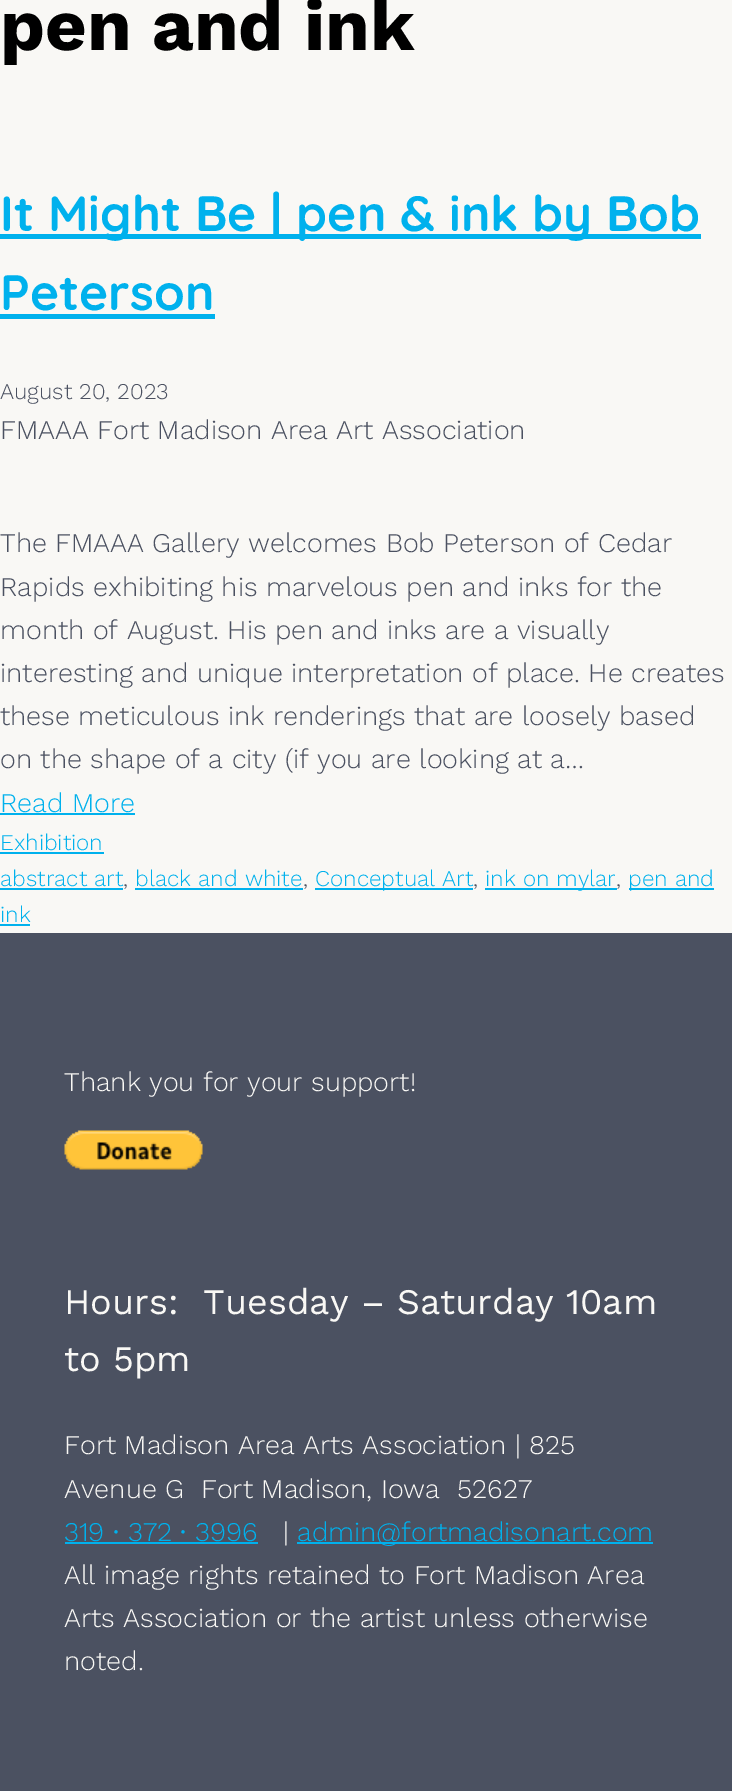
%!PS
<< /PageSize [732 1791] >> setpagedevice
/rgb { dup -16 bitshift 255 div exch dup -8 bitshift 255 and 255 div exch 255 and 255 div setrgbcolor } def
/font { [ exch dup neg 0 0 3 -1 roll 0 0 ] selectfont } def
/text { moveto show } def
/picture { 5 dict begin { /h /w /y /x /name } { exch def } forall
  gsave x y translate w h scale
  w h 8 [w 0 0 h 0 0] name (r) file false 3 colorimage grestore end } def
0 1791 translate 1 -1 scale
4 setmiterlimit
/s1 { /WorkSans-Bold 72 font 16#000000 rgb } def
/s2 { /Quicksand-Bold 49.5 font 16#00B1ED rgb } def
/s3 { /WorkSans-Light 22.5 font 16#4B5161 rgb } def
/s4 { /WorkSans-Light 27 font 16#4B5161 rgb } def
/s5 { /WorkSans-Light 27 font 16#00B1ED rgb } def
/s6 { /WorkSans-Light 22.5 font 16#00B1ED rgb } def
/s7 { /WorkSans-Light 27 font 16#F9F8F5 rgb } def
/s8 { /WorkSans-Regular 36 font 16#F9F8F5 rgb } def
/s9 { /WorkSans-Regular 27 font 16#00B1ED rgb } def
16#F9F8F5 rgb
0 0 732 1791 rectfill
s1
(pen and ink) 0 50 text
16#00B1ED rgb
0 234 701 5 rectfill
s2
(It Might Be | pen & ink by Bob) 0 231 text
(Peterson) 0 310 text
0 314 215 5 rectfill
s3
(August 20, 2023) 0 399 text
s4
(FMAAA Fort Madison Area Art Association) 0 439 text
(The FMAAA Gallery welcomes Bob Peterson of Cedar) 0 552 text
(Rapids exhibiting his marvelous pen and inks for the) 0 596 text
(month of August. His pen and inks are a visually) 0 639 text
(interesting and unique interpretation of place. He creates) 0 682 text
(these meticulous ink renderings that are loosely based) 0 725 text
(on the shape of a city \(if you are looking at a…) 0 768 text
s5
(Read More) 0 812 text
0 813 135 2 rectfill
s6
(Exhibition) 0 850 text
0 852 104 2 rectfill
(abstract art) 0 886 text
0 888 123 2 rectfill
s3
(,) 123 886 text
s6
(black and white) 135 886 text
135 888 168 2 rectfill
s3
(,) 303 886 text
16#00B1ED rgb
315 888 158 2 rectfill
(Conceptual Art) 315 886 text
s3
(,) 473 886 text
16#00B1ED rgb
485 888 132 2 rectfill
(ink on mylar) 485 886 text
s3
(,) 616 886 text
16#00B1ED rgb
629 888 85 2 rectfill
(pen and) 628 886 text
(ink) 0 922 text
0 924 30 2 rectfill
16#4B5161 rgb
0 933 732 858 rectfill
s7
(Thank you for your support!) 64 1091 text
(pic1.raw) 64 1130 139 40 picture
s8
(Hours:  Tuesday – Saturday 10am) 64 1314 text
(to 5pm) 64 1371 text
s7
(Fort Madison Area Arts Association | 825) 64 1454 text
(Avenue G  Fort Madison, Iowa  52627) 64 1498 text
s5
(319) 64 1541 text
65 1542 193 2 rectfill
s9
(∙) 113 1541 text
s5
(372) 128 1541 text
s9
(∙) 180 1541 text
s5
(3996) 195 1541 text
s7
(|) 283 1541 text
16#00B1ED rgb
297 1542 356 2 rectfill
(admin@fortmadisonart.com) 297 1541 text
s7
(All image rights retained to Fort Madison Area) 64 1584 text
(Arts Association or the artist unless otherwise) 64 1627 text
(noted.) 64 1670 text
showpage
